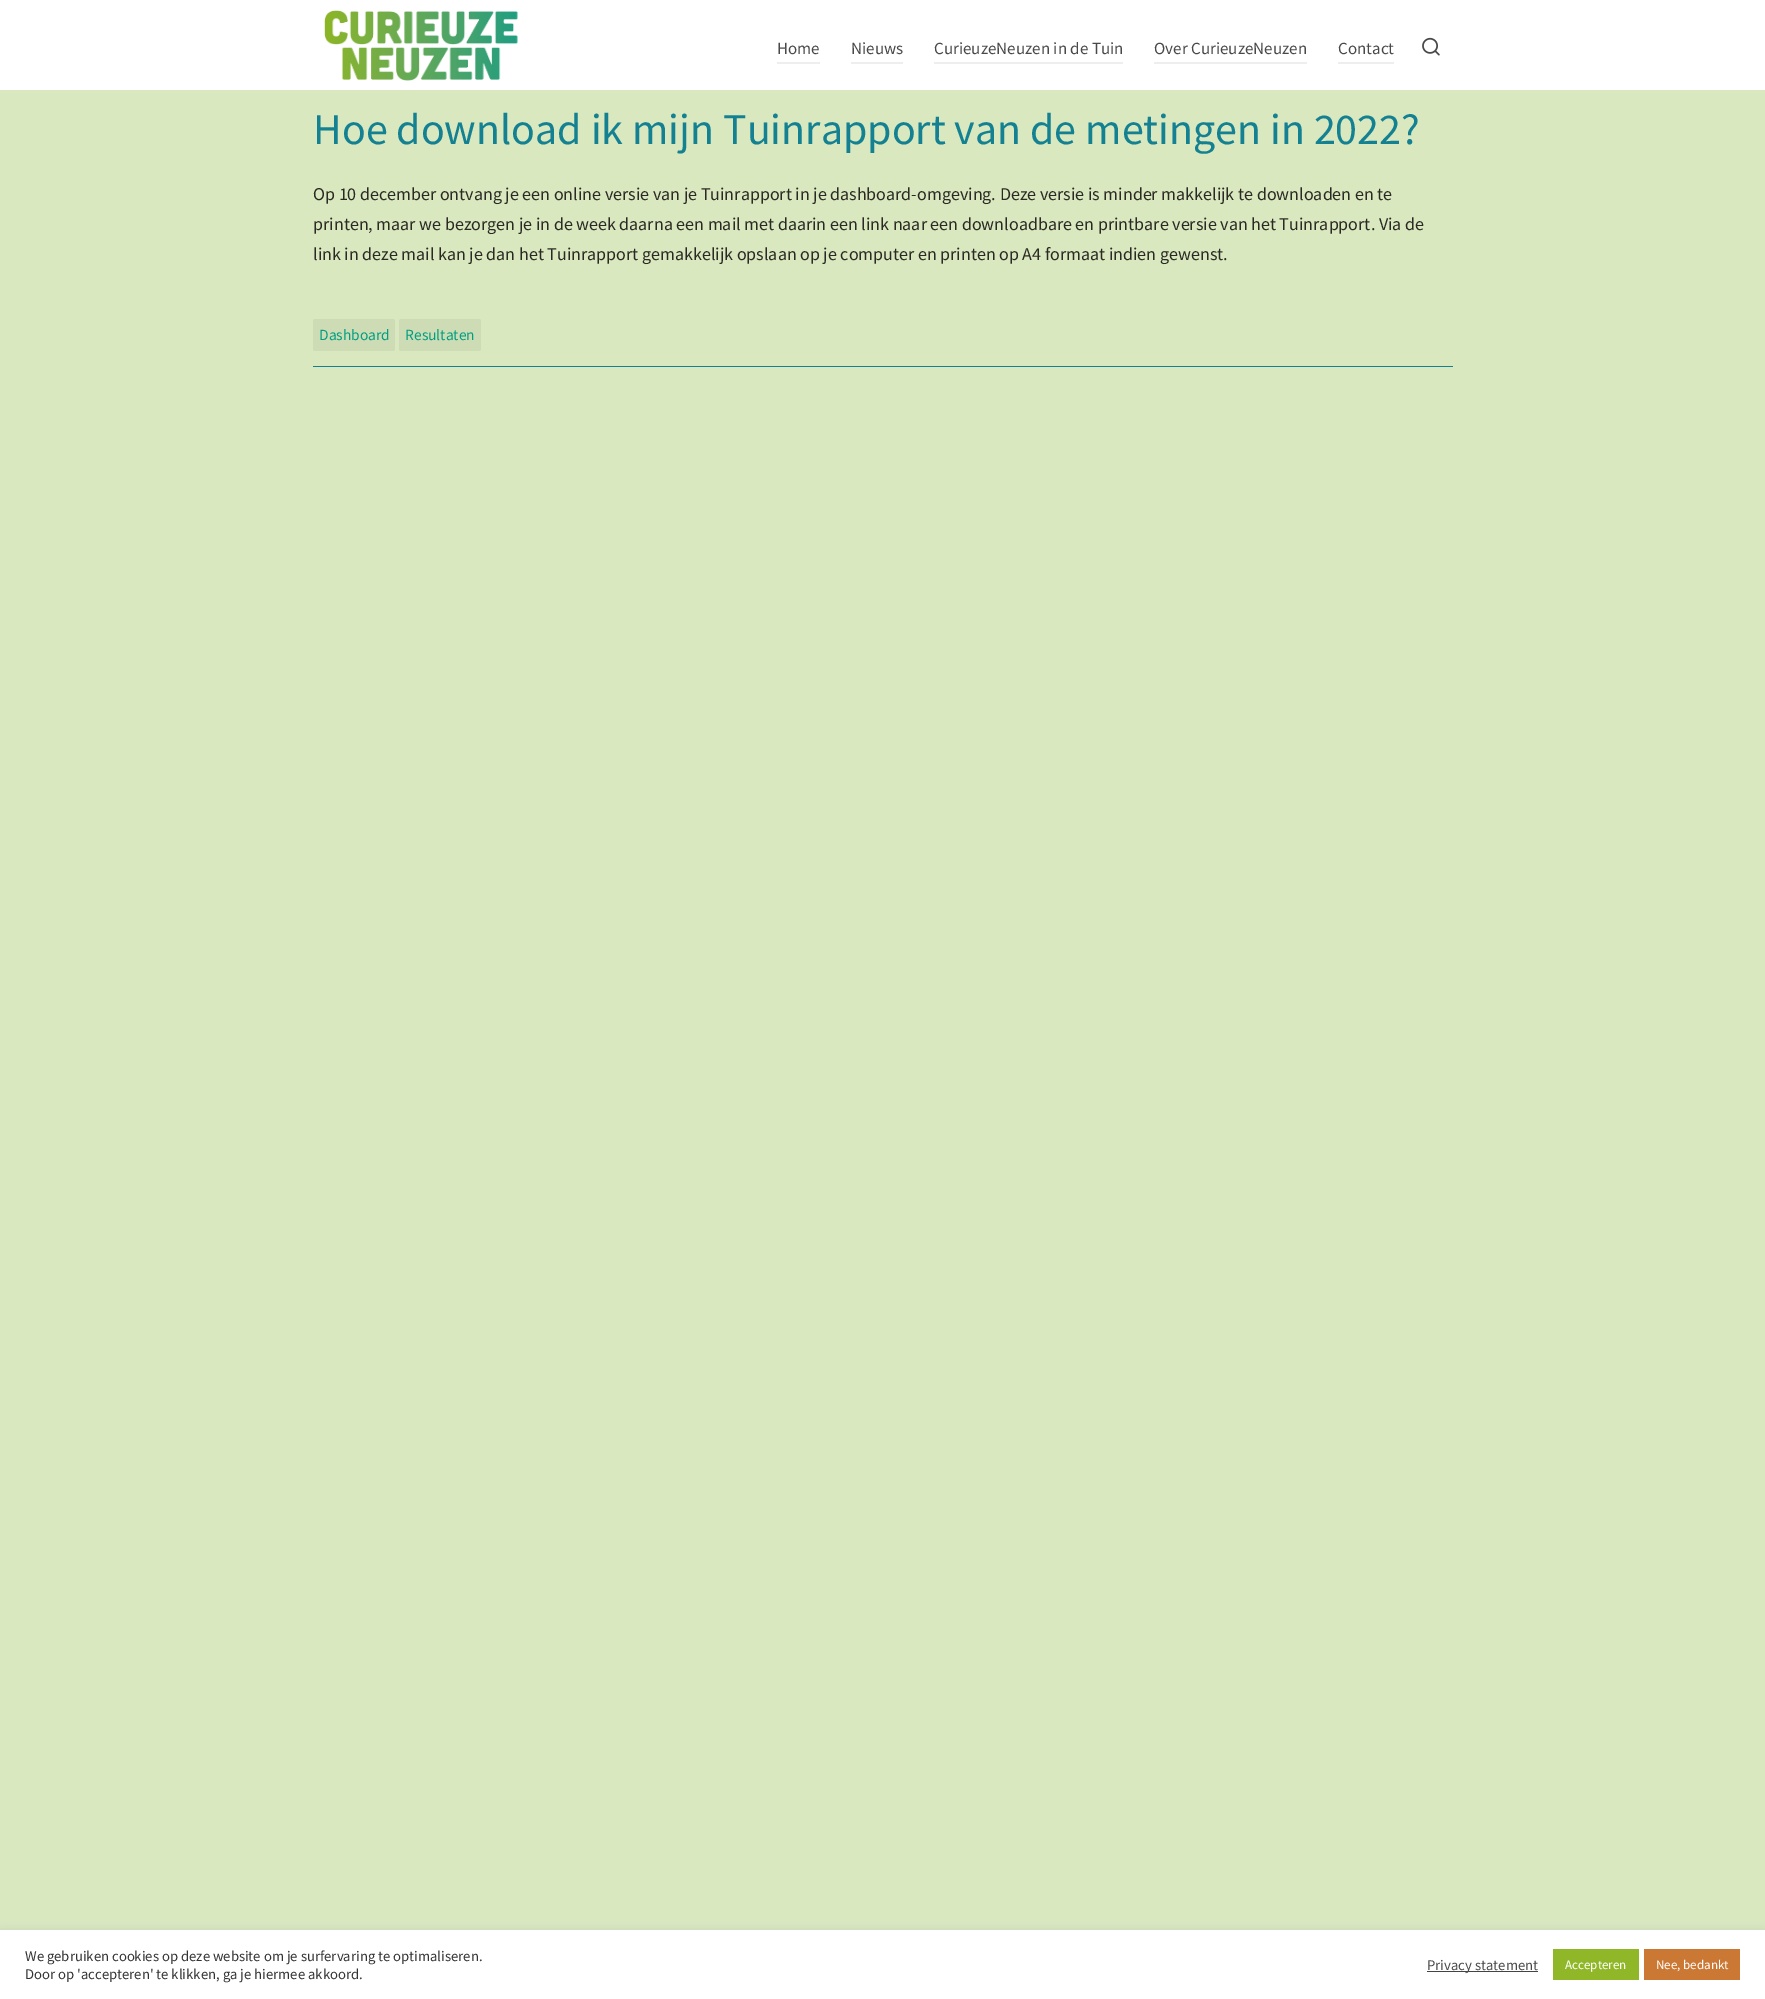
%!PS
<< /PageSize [1765 1999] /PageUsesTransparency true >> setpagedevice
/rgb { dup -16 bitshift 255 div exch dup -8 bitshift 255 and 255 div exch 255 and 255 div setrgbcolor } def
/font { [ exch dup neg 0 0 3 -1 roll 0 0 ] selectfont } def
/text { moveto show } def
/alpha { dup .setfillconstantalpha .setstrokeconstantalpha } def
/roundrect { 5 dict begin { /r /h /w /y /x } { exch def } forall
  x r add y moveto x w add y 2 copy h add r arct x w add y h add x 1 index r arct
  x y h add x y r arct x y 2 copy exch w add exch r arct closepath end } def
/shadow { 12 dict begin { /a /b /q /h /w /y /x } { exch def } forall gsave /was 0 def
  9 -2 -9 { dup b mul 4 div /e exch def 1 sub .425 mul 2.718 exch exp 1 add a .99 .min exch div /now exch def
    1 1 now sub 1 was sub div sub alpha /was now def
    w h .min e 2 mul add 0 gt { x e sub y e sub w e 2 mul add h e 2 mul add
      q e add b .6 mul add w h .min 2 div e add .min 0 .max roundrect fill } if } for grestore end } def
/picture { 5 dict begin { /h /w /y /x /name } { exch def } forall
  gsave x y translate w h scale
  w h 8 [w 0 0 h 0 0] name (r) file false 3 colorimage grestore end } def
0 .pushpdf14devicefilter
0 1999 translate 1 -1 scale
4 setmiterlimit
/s1 { /SourceSansPro-Regular 17 font 16#494949 rgb } def
/s2 { /SourceSansPro-Regular 44 font 16#138192 rgb } def
/s3 { /SourceSansPro-Regular 18 font 16#2A2923 rgb } def
/s4 { /SourceSansPro-Regular 15.5 font 16#029E81 rgb } def
/s5 { /SourceSansPro-Regular 14.7 font 16#333333 rgb } def
/s6 { /SourceSansPro-Regular 14.7 font 16#494949 rgb } def
/s7 { /SourceSansPro-Regular 13 font 16#FFFFFF rgb } def
16#D9E8BF rgb
0 0 1765 1999 rectfill
16#FFFFFF rgb
0 0 1765 90 rectfill
(pic1.raw) 324 10 194 71 picture
s1
(Home) 777 54 text
16#EEEEEE rgb
777 62 43 2 rectfill
s1
(Nieuws) 851 54 text
16#EEEEEE rgb
851 62 52 2 rectfill
s1
(CurieuzeNeuzen in de Tuin) 934 54 text
16#EEEEEE rgb
934 62 189 2 rectfill
s1
(Over CurieuzeNeuzen) 1154 54 text
16#EEEEEE rgb
1154 62 153 2 rectfill
s1
(Contact) 1338 54 text
16#EEEEEE rgb
1338 62 56 2 rectfill
(pic2.raw) 1422 37 18 19 picture
s2
(Hoe download ik mijn Tuinrapport van de metingen in 2022?) 313 144 text
s3
(Op 10 december ontvang je een online versie van je Tuinrapport in je dashboard-omgeving. Deze versie is minder makkelijk te downloaden en te) 313 200 text
(printen, maar we bezorgen je in de week daarna een mail met daarin een link naar een downloadbare en printbare versie van het Tuinrapport. Via de) 313 230 text
(link in deze mail kan je dan het Tuinrapport gemakkelijk opslaan op je computer en printen op A4 formaat indien gewenst.) 313 260 text
16#CEDCB5 rgb
313 319 82 32 2 roundrect fill
s4
(Dashboard) 319 340 text
16#CEDCB5 rgb
399 319 82 32 2 roundrect fill
s4
(Resultaten) 405 340 text
16#138192 rgb
313 366 1140 1 rectfill
16#ACABAB rgb
0 1929 1765 69 0 5 0.3 shadow
16#FFFFFF rgb
0 1930 1765 69 rectfill
s5
(We gebruiken cookies op deze website om je surfervaring te optimaliseren.) 25 1961 text
(Door op 'accepteren' te klikken, ga je hiermee akkoord.) 25 1979 text
16#444444 rgb
1427 1971 111 1 rectfill
s6
(Privacy statement) 1427 1970 text
16#8FB728 rgb
1553 1949 86 31 rectfill
s7
(Accepteren) 1565 1969 text
16#CC7835 rgb
1644 1949 96 31 rectfill
s7
(Nee, bedankt) 1656 1969 text
.poppdf14devicefilter showpage
